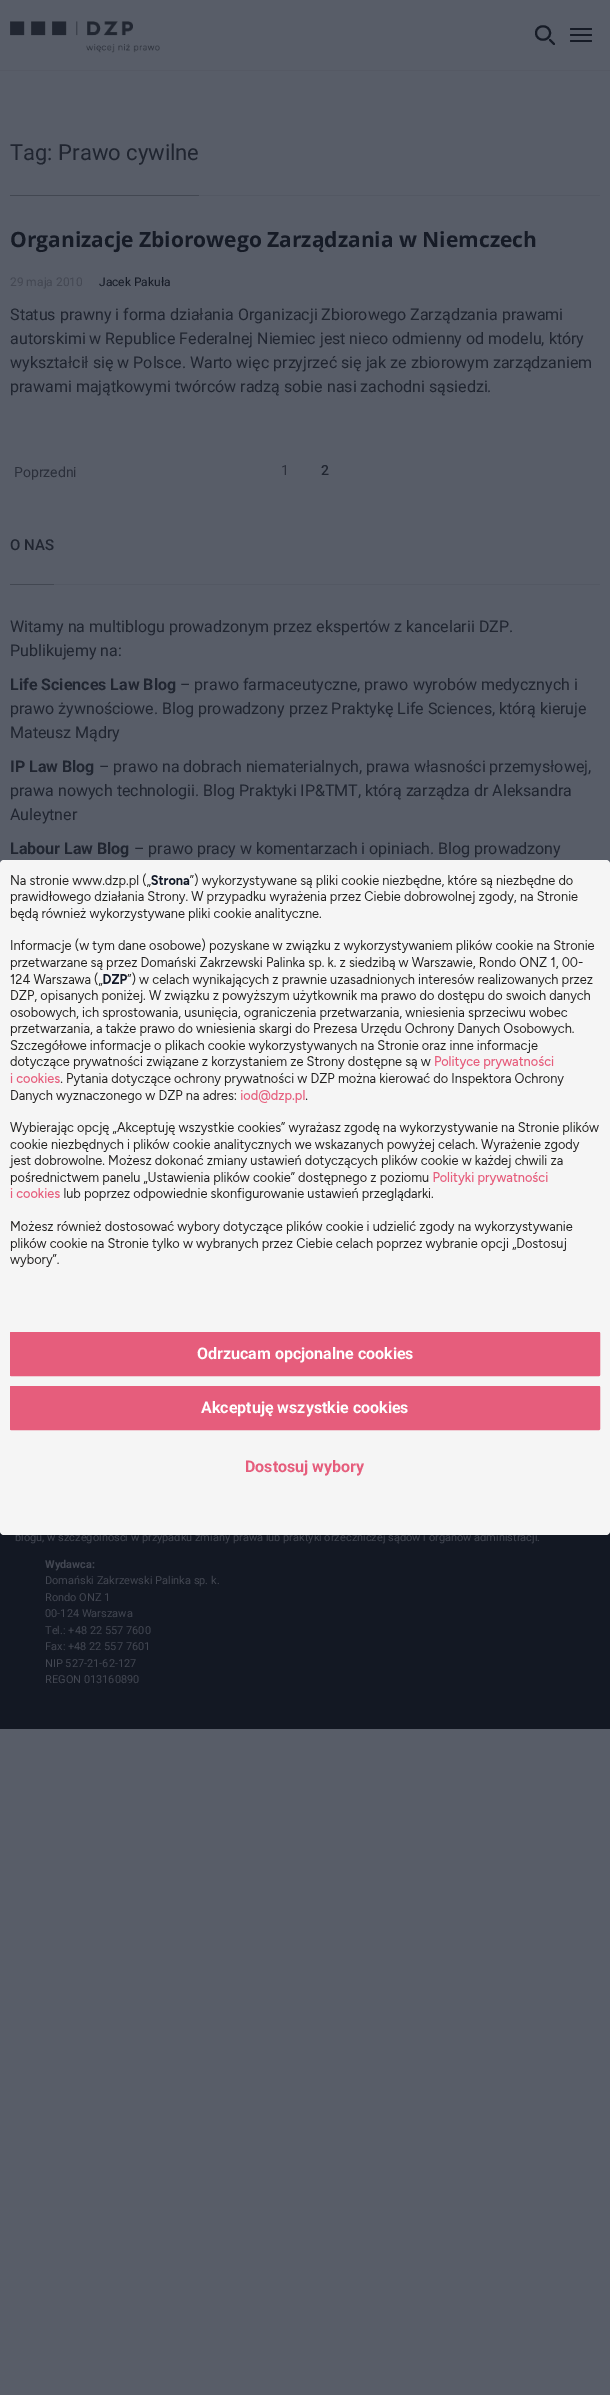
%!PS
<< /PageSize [610 2395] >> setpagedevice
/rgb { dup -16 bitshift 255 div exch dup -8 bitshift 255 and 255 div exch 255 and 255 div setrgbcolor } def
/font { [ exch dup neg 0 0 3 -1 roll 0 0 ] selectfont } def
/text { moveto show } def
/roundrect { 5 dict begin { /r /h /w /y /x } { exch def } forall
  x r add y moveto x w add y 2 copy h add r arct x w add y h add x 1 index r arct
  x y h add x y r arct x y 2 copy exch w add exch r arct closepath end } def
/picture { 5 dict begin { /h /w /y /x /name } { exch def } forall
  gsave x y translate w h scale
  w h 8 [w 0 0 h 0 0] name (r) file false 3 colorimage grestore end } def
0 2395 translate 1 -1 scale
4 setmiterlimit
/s1 { /Roboto-Regular 22 font 16#202530 rgb } def
/s2 { /OpenSans-Bold 21 font 16#161B26 rgb } def
/s3 { /Roboto-Regular 12 font 16#434752 rgb } def
/s4 { /Roboto-Regular 12 font 16#161B26 rgb } def
/s5 { /Roboto-Regular 16 font 16#202530 rgb } def
/s6 { /Roboto-Regular 14 font 16#2B2F3A rgb } def
/s7 { /Roboto-Medium 14 font 16#202530 rgb } def
/s8 { /Roboto-Medium 15 font 16#202530 rgb } def
/s9 { /Roboto-Bold 16 font 16#202530 rgb } def
/s10 { /Roboto-Regular 11 font 16#434752 rgb } def
/s11 { /Roboto-Bold 11 font 16#434752 rgb } def
/s12 { /Roboto-Bold 16 font 16#FFFFFF rgb } def
/s13 { /Roboto-Bold 16 font 16#E65D7C rgb } def
16#585D68 rgb
0 0 610 2395 rectfill
16#555964 rgb
0 70 610 1 rectfill
(pic1.raw) 10 21 150 32 picture
16#161B26 rgb
2 setlinewidth
1 setlinecap
1 setlinejoin
554 44 moveto 550 40 lineto 550 33 moveto 550 42 536 42 536 33 curveto 536 24 550 24 550 33 curveto closepath stroke
570 28 22 2 1 roundrect fill
570 34 22 2 1 roundrect fill
570 40 22 2 1 roundrect fill
16#535863 rgb
199 195 401 1 rectfill
s1
(Tag: Prawo cywilne) 10 160 text
16#424751 rgb
10 195 189 1 rectfill
s2
(Organizacje Zbiorowego Zarządzania w Niemczech) 10 247 text
s3
(29 maja 2010) 10 286 text
s4
(Jacek Pakuła) 99 286 text
s5
(Status prawny i forma działania Organizacji Zbiorowego Zarządzania prawami) 10 320 text
(autorskimi w Republice Federalnej Niemiec jest nieco odmienny od modelu, który) 10 344 text
(wykształcił się w Polsce. Warto więc przyjrzeć się jak ze zbiorowym zarządzaniem) 10 368 text
(prawami majątkowymi twórców radzą sobie nasi zachodni sąsiedzi.) 10 392 text
s6
(Poprzedni) 14 477 text
(1) 281 475 text
s7
(2) 321 475 text
16#535863 rgb
54 584 546 1 rectfill
s8
(O NAS) 10 550 text
16#424751 rgb
10 584 44 1 rectfill
s5
(Witamy na multiblogu prowadzonym przez ekspertów z kancelarii DZP.) 10 632 text
(Publikujemy na:) 10 656 text
s9
(Life Sciences Law Blog) 10 690 text
s5
(– prawo farmaceutyczne, prawo wyrobów medycznych i) 180 690 text
(prawo żywnościowe. Blog prowadzony przez Praktykę Life Sciences, którą kieruje) 10 714 text
(Mateusz Mądry) 10 738 text
s9
(IP Law Blog) 10 772 text
s5
(– prawo na dobrach niematerialnych, prawa własności przemysłowej,) 99 772 text
(prawa nowych technologii. Blog Praktyki IP&TMT, którą zarządza dr Aleksandra) 10 796 text
(Auleytner) 10 820 text
s9
(Labour Law Blog) 10 854 text
s5
(– prawo pracy w komentarzach i opiniach. Blog prowadzony) 134 854 text
16#131823 rgb
0 1531 610 198 rectfill
s10
(blogu, w szczególności w przypadku zmiany prawa lub praktyki orzeczniczej sądów i organów administracji.) 15 1541 text
s11
(Wydawca:) 45 1568 text
s10
(Domański Zakrzewski Palinka sp. k.) 45 1584 text
(Rondo ONZ 1) 45 1601 text
(00-124 Warszawa) 45 1617 text
(Tel.: +48 22 557 7600) 45 1634 text
(Fax: +48 22 557 7601) 45 1650 text
(NIP 527-21-62-127) 45 1667 text
(REGON 013160890) 45 1683 text
16#F5F5F5 rgb
0 860 610 675 4 roundrect fill
(pic2.raw) 9 873 590 394 picture
16#E65D7C rgb
10.5 1332.5 589 43 0.5 roundrect gsave fill grestore
1 setlinewidth
0 setlinecap
0 setlinejoin
stroke
s12
(Odrzucam opcjonalne cookies) 197 1359 text
16#E65D7C rgb
10.5 1386.5 589 43 0.5 roundrect gsave fill grestore
stroke
s12
(Akceptuję wszystkie cookies) 201 1413 text
s13
(Dostosuj wybory) 245 1472 text
showpage
